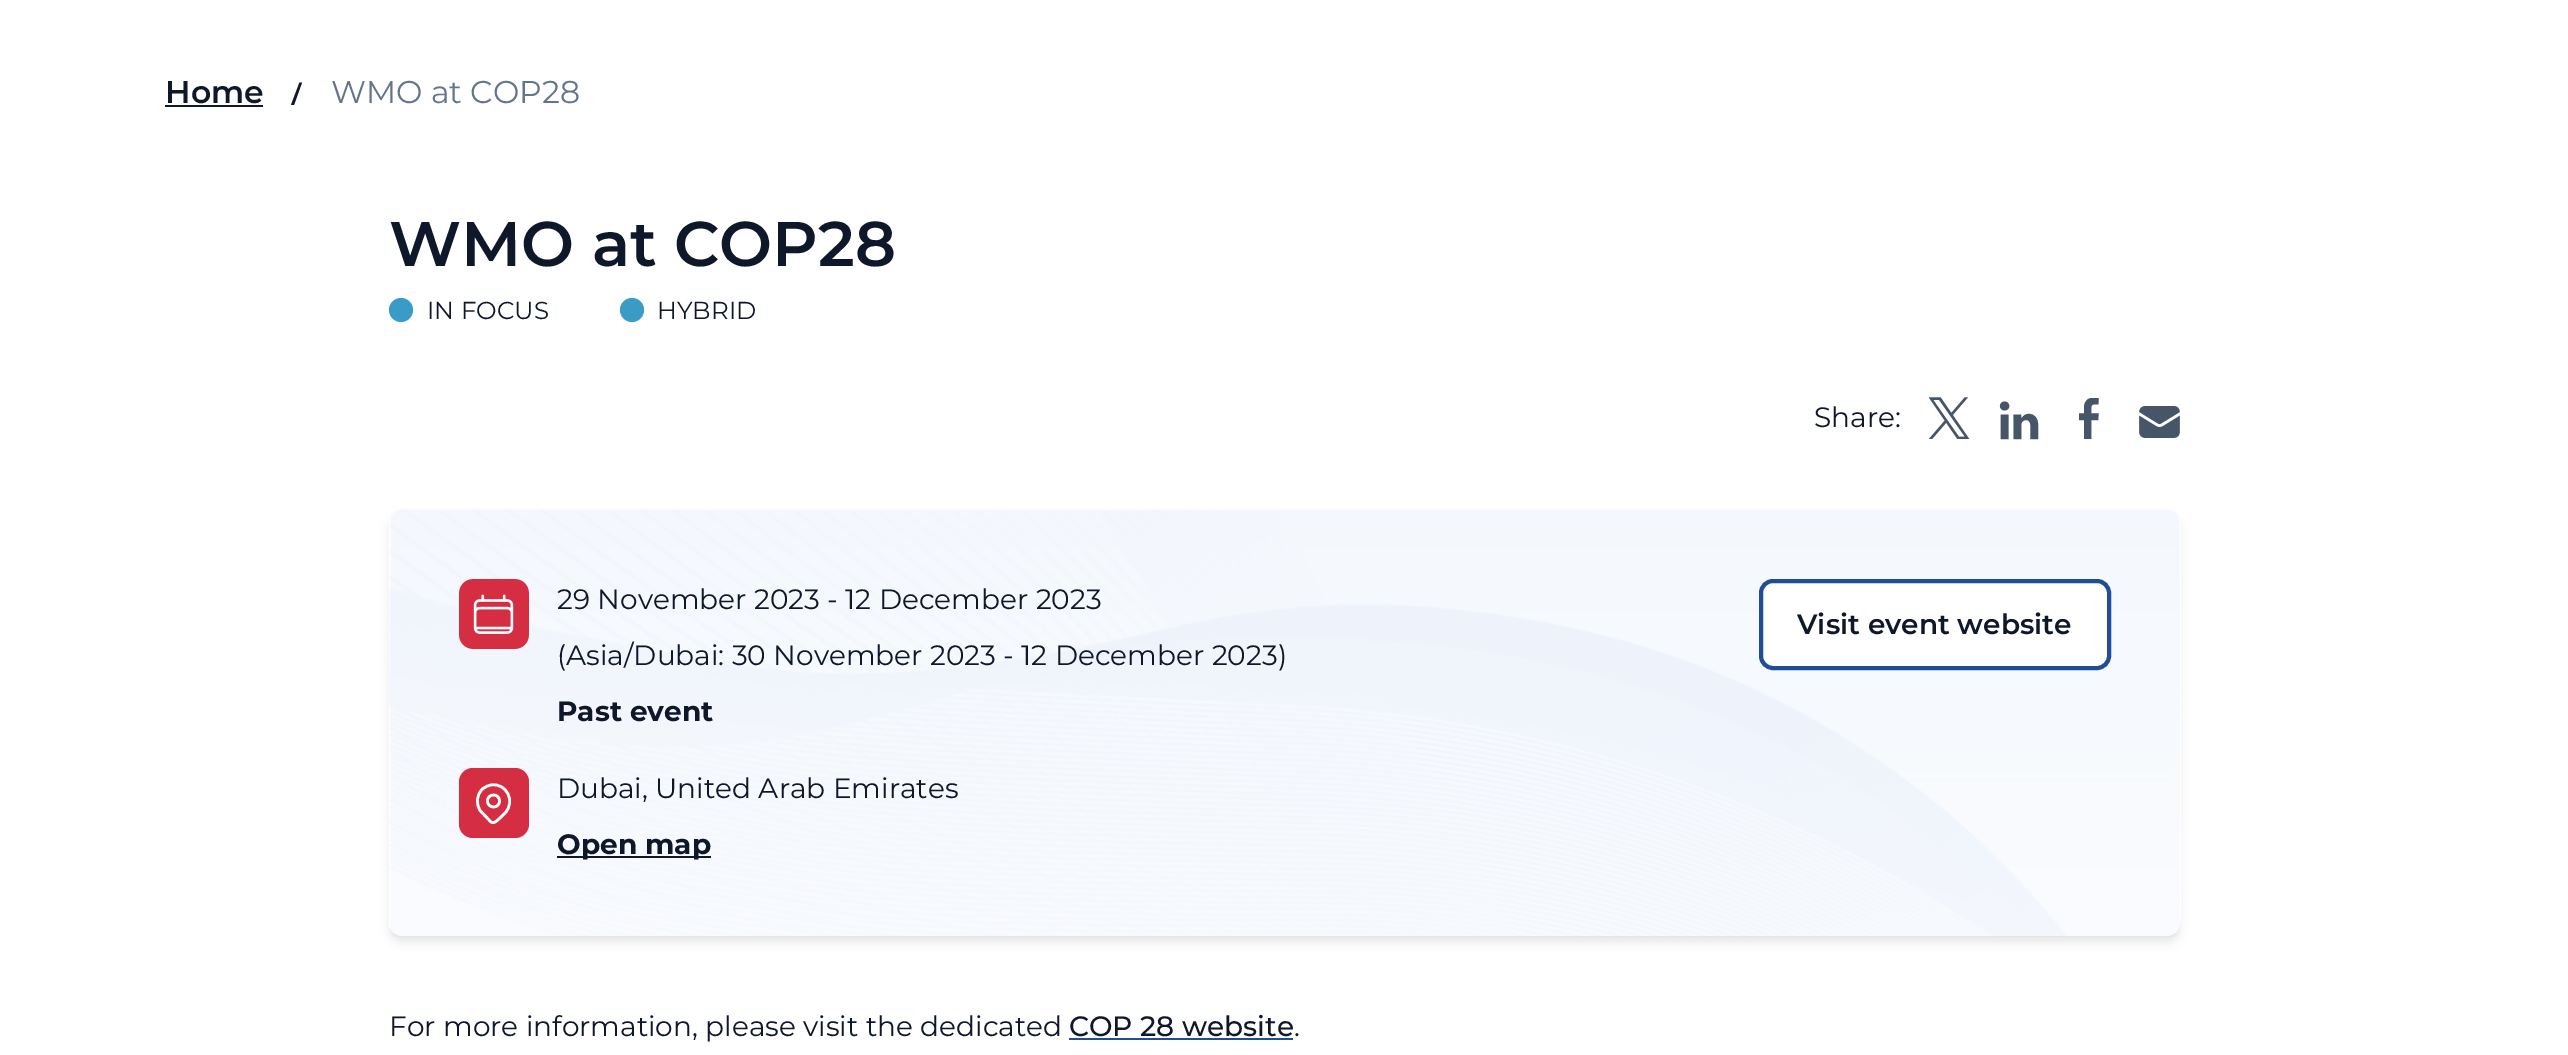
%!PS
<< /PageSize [2568 1055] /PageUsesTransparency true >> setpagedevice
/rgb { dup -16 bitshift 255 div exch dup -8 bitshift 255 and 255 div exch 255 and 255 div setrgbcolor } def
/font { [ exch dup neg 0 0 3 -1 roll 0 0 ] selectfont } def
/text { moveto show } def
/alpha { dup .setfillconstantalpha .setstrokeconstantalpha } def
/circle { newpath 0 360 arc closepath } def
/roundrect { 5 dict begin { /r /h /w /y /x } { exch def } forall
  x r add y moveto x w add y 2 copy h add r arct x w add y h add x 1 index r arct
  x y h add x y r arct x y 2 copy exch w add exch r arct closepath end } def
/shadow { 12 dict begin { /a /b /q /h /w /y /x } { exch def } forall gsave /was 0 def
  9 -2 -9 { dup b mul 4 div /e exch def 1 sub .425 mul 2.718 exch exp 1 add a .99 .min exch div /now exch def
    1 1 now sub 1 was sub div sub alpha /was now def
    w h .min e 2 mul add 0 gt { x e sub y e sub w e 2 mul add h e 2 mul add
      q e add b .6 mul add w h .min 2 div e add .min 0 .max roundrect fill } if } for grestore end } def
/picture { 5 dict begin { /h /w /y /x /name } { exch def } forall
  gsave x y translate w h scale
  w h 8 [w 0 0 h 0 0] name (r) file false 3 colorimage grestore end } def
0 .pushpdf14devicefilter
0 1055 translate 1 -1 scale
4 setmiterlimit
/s1 { /Montserrat-SemiBold 31.5 font 16#0F172A rgb } def
/s2 { /Montserrat-Regular 31.5 font 16#64748B rgb } def
/s3 { /Montserrat-SemiBold 63 font 16#0F172A rgb } def
/s4 { /Montserrat-Regular 24.5 font 16#0F172A rgb } def
/s5 { /Montserrat-Regular 28 font 16#0F172A rgb } def
/s6 { /Montserrat-Bold 28 font 16#0F172A rgb } def
/s7 { /Montserrat-SemiBold 28 font 16#0F172A rgb } def
/s8 { /Montserrat-Medium 28 font 16#0F172A rgb } def
16#FFFFFF rgb
0 0 2568 1055 rectfill
s1
(Home) 165 103 text
165 105 98 2 rectfill
302 82.5 moveto 294 105 lineto 291 105 lineto 299.5 82.5 lineto closepath fill
s2
(WMO at COP28) 331 103 text
s3
(WMO at COP28) 389 266 text
16#399CC7 rgb
401 310 12 circle fill
s4
(IN FOCUS) 427 319 text
16#399CC7 rgb
632 310 12 circle fill
s4
(HYBRID) 657 319 text
s5
(Share:) 1814 427 text
(pic1.raw) 1929 397 41 42 picture
(pic2.raw) 1999 401 40 39 picture
(pic3.raw) 2079 398 20 42 picture
(pic4.raw) 2139 406 41 32 picture
gsave
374 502 moveto 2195 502 lineto 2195 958 lineto 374 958 lineto closepath 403 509 moveto 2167 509 lineto 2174.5 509 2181 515.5 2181 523 curveto 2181 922 lineto 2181 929.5 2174.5 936 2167 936 curveto 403 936 lineto 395.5 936 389 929.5 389 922 curveto 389 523 lineto 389 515.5 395.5 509 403 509 curveto closepath eoclip newpath
16#000000 rgb
390 518 1789 424 12 5 0.1 shadow
grestore
(pic5.raw) 389 509 1791 428 picture
(pic6.raw) 459 579 70 70 picture
(29 November 2023 - 12 December 2023) 557 609 text
(\(Asia/Dubai: 30 November 2023 - 12 December 2023\)) 557 665 text
s6
(Past event) 557 721 text
16#D52D41 rgb
459 768 70 70 14 roundrect fill
16#FFFFFF rgb
2.6 setlinewidth
1 setlinecap
1 setlinejoin
505 813 moveto 499.5 818.5 lineto 497 820.5 494.5 824 491 822 curveto 480.5 811 lineto 475.5 804 476.5 794.5 482.5 789 curveto 485 787 488 785.5 491 785 curveto 506.5 782.5 516 801.5 505 813 curveto closepath 499.5 801 moveto 499.5 809 487.5 809 487.5 801 curveto 487.5 793 499.5 793 499.5 801 curveto closepath stroke
s5
(Dubai, United Arab Emirates) 557 798 text
557 856 154 2 rectfill
s6
(Open map) 557 854 text
16#FFFFFF rgb
1761 581 348 87 12 roundrect gsave fill grestore
16#204E96 rgb
4 setlinewidth
0 setlinecap
0 setlinejoin
stroke
s7
(Visit event website) 1797 634 text
s5
(For more information, please visit the dedicated) 389 1036 text
s8
(COP 28 website) 1069 1036 text
16#204E96 rgb
1069 1038 224 2 rectfill
s5
(.) 1294 1036 text
.poppdf14devicefilter showpage
